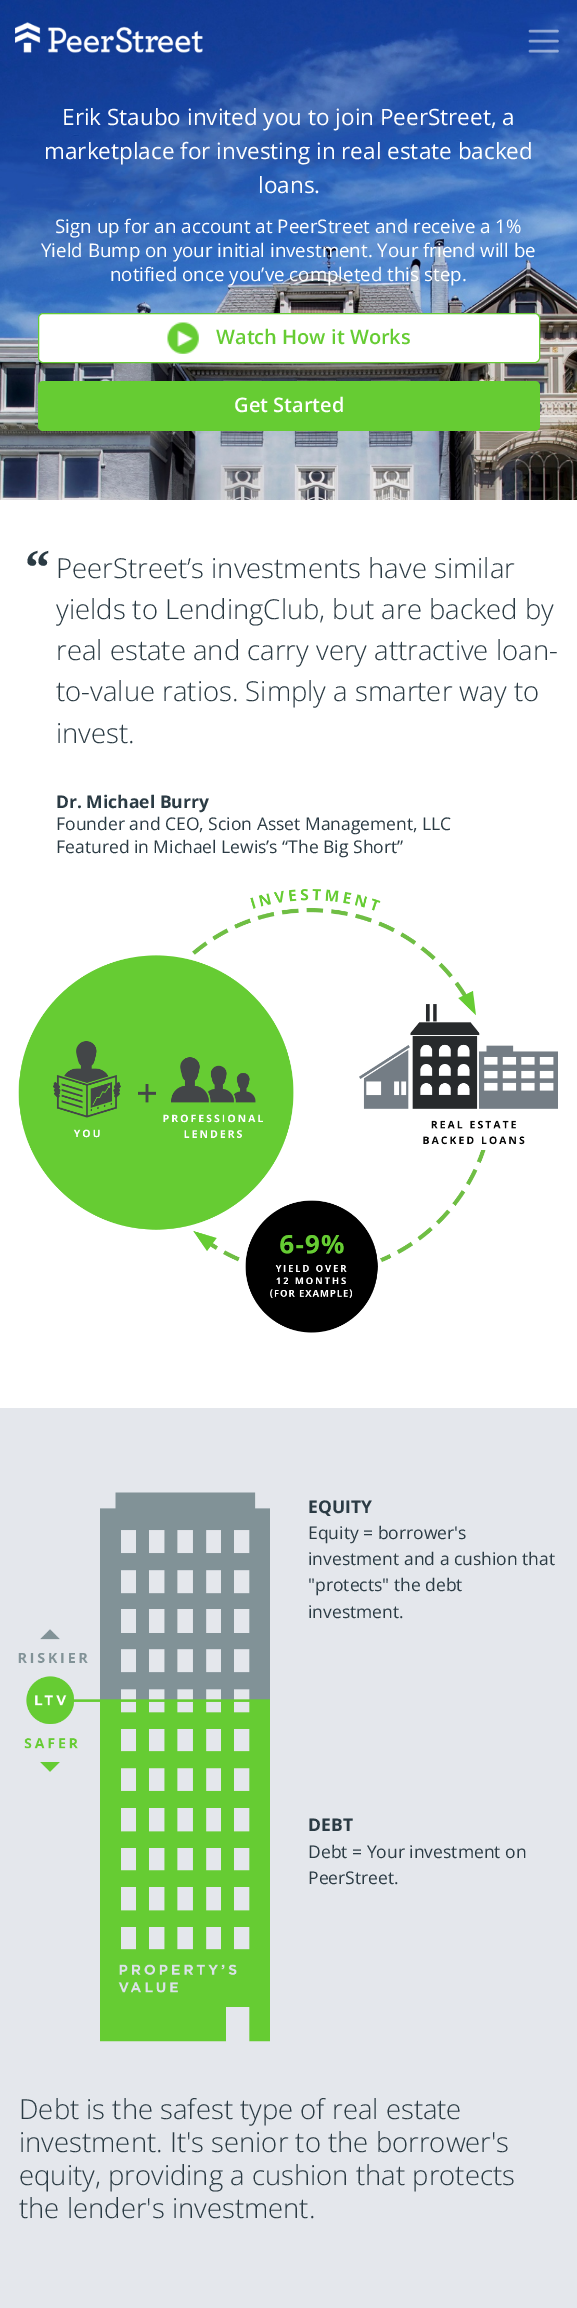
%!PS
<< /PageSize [577 2308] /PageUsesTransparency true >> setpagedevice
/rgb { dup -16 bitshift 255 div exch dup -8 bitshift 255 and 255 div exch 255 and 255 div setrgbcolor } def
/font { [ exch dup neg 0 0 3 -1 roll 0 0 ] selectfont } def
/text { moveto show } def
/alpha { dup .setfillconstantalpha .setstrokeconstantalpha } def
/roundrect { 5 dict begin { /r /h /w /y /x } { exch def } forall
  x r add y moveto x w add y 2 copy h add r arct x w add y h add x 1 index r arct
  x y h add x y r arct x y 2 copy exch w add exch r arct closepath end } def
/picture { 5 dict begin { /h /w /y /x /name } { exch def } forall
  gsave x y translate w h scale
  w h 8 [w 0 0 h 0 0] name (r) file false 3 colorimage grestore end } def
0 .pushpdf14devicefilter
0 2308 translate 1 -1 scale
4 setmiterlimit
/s1 { /OpenSans-Regular 22.5 font 16#FFFFFF rgb } def
/s2 { /OpenSans-Regular 18.75 font 16#FFFFFF rgb } def
/s3 { /OpenSans-SemiBold 20 font 16#66CC33 rgb } def
/s4 { /OpenSans-SemiBold 20 font 16#FFFFFF rgb } def
/s5 { /LiberationSerif-Bold 50 font 16#2B3B44 rgb } def
/s6 { /OpenSans-Light 27.5 font 16#2B3B44 rgb } def
/s7 { /OpenSans-Bold 17.5 font 16#2B3B44 rgb } def
/s8 { /OpenSans-Regular 17.5 font 16#2B3B44 rgb } def
16#FFFFFF rgb
0 0 577 2308 rectfill
(pic2.raw) 0 0 577 500 picture
(pic1.raw) 15 22 188 31 picture
0.5 alpha
2.5 setlinewidth
1 setlinecap
530 31 moveto 557.5 31 lineto 530 41 moveto 557.5 41 lineto 530 51 moveto 557.5 51 lineto stroke
1 alpha
s1
(Erik Staubo invited you to join PeerStreet, a) 62 125 text
(marketplace for investing in real estate backed) 44 159 text
(loans.) 258 193 text
s2
(Sign up for an account at PeerStreet and receive a 1%) 55 233 text
(Yield Bump on your initial investment. Your friend will be) 41 257 text
(notified once you’ve completed this step.) 110 281 text
38.5 313.5 501 49 4.5 roundrect gsave fill grestore
16#66CC33 rgb
1 setlinewidth
0 setlinecap
stroke
(pic3.raw) 167 322 32 32 picture
s3
(Watch How it Works) 216 344 text
38 381 502 50 5 roundrect fill
s4
(Get Started) 234 412 text
s5
(“) 25 584 text
s6
(PeerStreet’s investments have similar) 56 578 text
(yields to LendingClub, but are backed by) 56 619 text
(real estate and carry very attractive loan-) 56 660 text
(to-value ratios. Simply a smarter way to) 56 701 text
(invest.) 56 743 text
s7
(Dr. Michael Burry) 56 808 text
s8
(Founder and CEO, Scion Asset Management, LLC) 56 830 text
(Featured in Michael Lewis’s “The Big Short”) 56 853 text
(pic4.raw) 18 889 540 444 picture
16#E4E7EC rgb
0 1408 577 900 rectfill
(pic5.raw) 18 1492 252 550 picture
s7
(EQUITY) 308 1513 text
s8
(Equity = borrower's) 308 1539 text
(investment and a cushion that) 308 1565 text
("protects" the debt) 308 1591 text
(investment.) 308 1618 text
s7
(DEBT) 308 1831 text
s8
(Debt = Your investment on) 308 1858 text
(PeerStreet.) 308 1884 text
s6
(Debt is the safest type of real estate) 19 2119 text
(investment. It's senior to the borrower's) 19 2152 text
(equity, providing a cushion that protects) 19 2185 text
(the lender's investment.) 19 2218 text
.poppdf14devicefilter showpage
